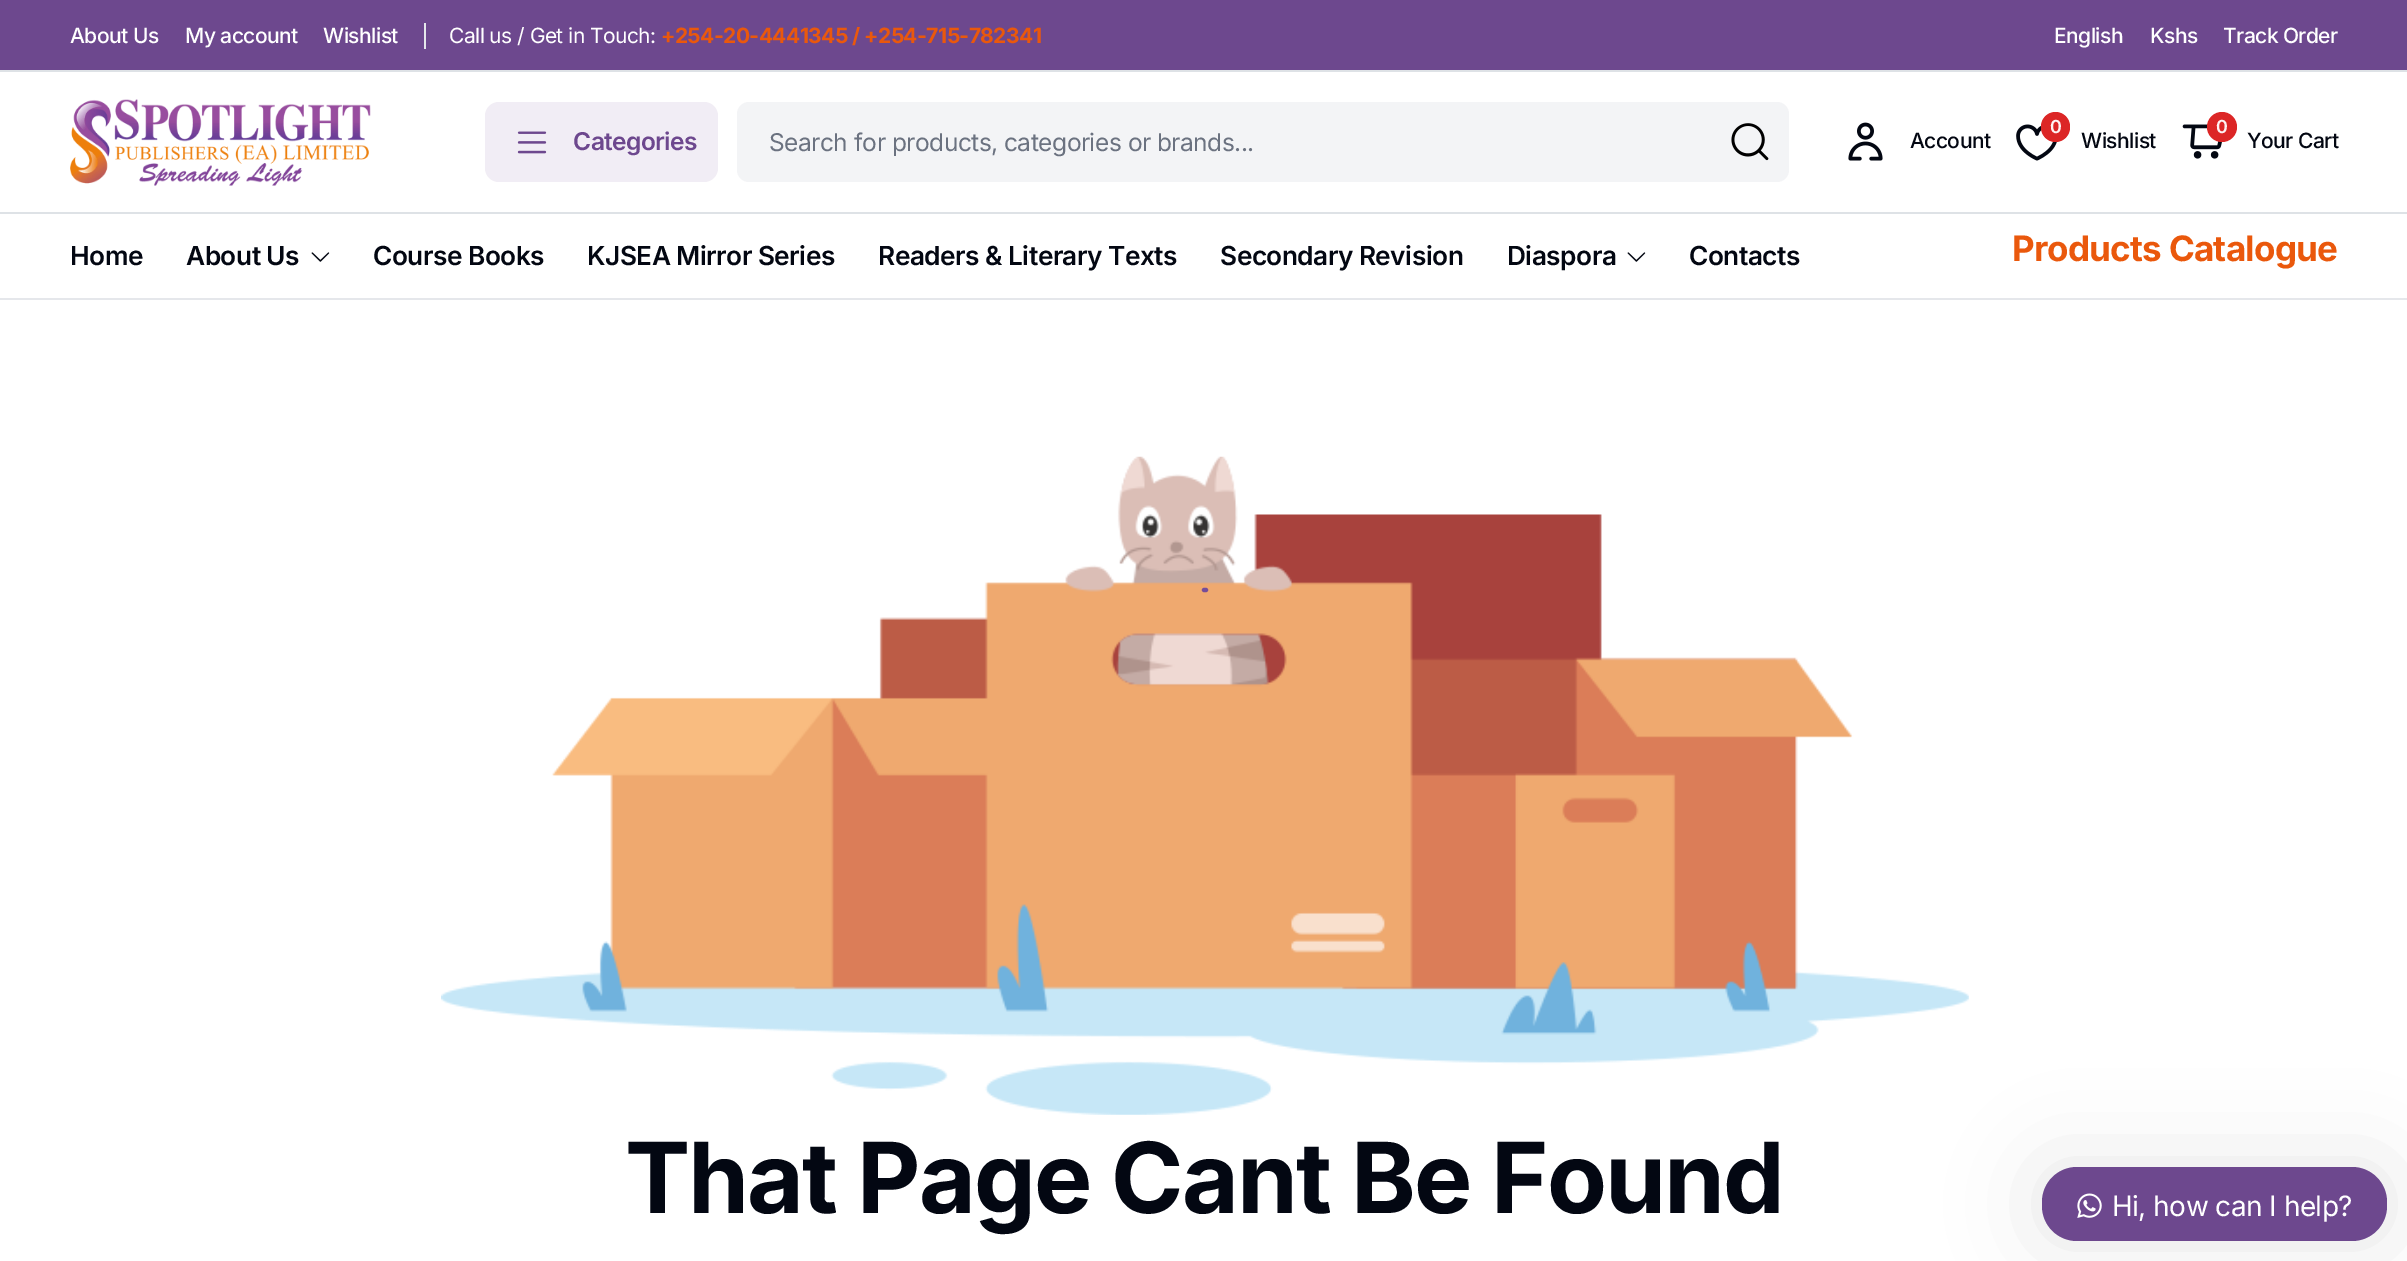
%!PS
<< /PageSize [2407 1261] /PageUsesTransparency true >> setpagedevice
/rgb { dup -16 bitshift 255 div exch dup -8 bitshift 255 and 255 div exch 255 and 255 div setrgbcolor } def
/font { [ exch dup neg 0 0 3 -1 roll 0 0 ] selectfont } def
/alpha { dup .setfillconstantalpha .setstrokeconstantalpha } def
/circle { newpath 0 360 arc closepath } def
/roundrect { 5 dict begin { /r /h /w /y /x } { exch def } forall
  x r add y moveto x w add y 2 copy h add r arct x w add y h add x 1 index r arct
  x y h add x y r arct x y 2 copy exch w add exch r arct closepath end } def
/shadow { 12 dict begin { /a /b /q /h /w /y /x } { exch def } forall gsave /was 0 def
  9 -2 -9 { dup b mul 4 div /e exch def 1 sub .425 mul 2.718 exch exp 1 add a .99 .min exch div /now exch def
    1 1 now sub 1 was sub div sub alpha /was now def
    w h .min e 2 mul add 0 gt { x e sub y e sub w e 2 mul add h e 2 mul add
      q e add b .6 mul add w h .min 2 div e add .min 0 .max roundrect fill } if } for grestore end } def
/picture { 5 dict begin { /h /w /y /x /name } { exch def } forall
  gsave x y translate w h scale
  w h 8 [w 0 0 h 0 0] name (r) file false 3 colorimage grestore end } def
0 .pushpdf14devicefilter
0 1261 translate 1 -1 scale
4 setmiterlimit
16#FFFFFF rgb
0 0 2407 1261 rectfill
16#E5E7EB rgb
0 298 2407 2 rectfill
16#6D488E rgb
0 0 2407 70 rectfill
16#DEE2E6 rgb
0 70 2407 2 rectfill
/Inter-Medium 21 font
16#FFFFFF rgb
70 43 moveto -0.55 0 (About Us) ashow
185 43 moveto -0.55 0 (My account) ashow
323 43 moveto -0.55 0 (Wishlist) ashow
16#E5E7EB rgb
424 23 2 26 rectfill
/Inter-Regular 21 font
16#FFFFFF rgb
449 43 moveto -0.55 0 (Call us / Get in Touch:) ashow
/Inter-Bold 21 font
16#EA580C rgb
661 43 moveto -0.55 0 (+254-20-4441345 / +254-715-782341) ashow
/Inter-Medium 21 font
16#FFFFFF rgb
2054 43 moveto -0.55 0 (English) ashow
2150 43 moveto -0.55 0 (Kshs) ashow
2223 43 moveto -0.55 0 (Track Order) ashow
16#DEE2E6 rgb
0 212 2407 2 rectfill
(pic1.raw) 70 99 301 87 picture
0.1 alpha
16#754D99 rgb
485 102 233 80 14 roundrect fill
1 alpha
(pic2.raw) 517 131 30 23 picture
/Inter-SemiBold 24.5 font
16#6D488E rgb
573 150 moveto -0.55 0 (Categories) ashow
16#F3F4F6 rgb
737 102 1052 80 12 roundrect fill
/Inter-Regular 24.5 font
16#6B7280 rgb
769 151 moveto -0.5 0 (Search for products, categories or brands...) ashow
(pic3.raw) 1731 123 38 38 picture
(pic4.raw) 1848 122 35 39 picture
/Inter-Medium 21 font
16#030712 rgb
1910 148 moveto -0.55 0 (Account) ashow
(pic5.raw) 2016 124 42 37 picture
16#DC2626 rgb
2041 112 29 30 14.5 roundrect fill
/Inter-SemiBold 18 font
16#FEF2F2 rgb
2050 133 moveto -0.55 0 (0) ashow
/Inter-Medium 21 font
16#030712 rgb
2081 148 moveto -0.55 0 (Wishlist) ashow
(pic6.raw) 2182 124 41 35 picture
16#DC2626 rgb
2222 127 15 circle fill
/Inter-SemiBold 18 font
16#FEF2F2 rgb
2216 133 moveto -0.55 0 (0) ashow
/Inter-Medium 21 font
16#030712 rgb
2247 148 moveto -0.55 0 (Your Cart) ashow
/Inter-SemiBold 26.25 font
70 265 moveto -0.5 0 (Home) ashow
186 265 moveto -0.5 0 (About Us) ashow
(pic7.raw) 311 252 19 10 picture
373 265 moveto -0.5 0 (Course Books) ashow
587 265 moveto -0.5 0 (KJSEA Mirror Series) ashow
878 265 moveto -0.5 0 (Readers & Literary Texts) ashow
1220 265 moveto -0.5 0 (Secondary Revision) ashow
1507 265 moveto -0.5 0 (Diaspora) ashow
(pic7.raw) 1627 252 19 10 picture
1689 265 moveto -0.5 0 (Contacts) ashow
/Inter-Bold 35 font
16#EA580C rgb
2012 261 moveto -0.75 0 (Products Catalogue) ashow
(pic8.raw) 441 456 1528 659 picture
/Inter-Bold 98 font
16#030712 rgb
625 1213 moveto -2 0 (That Page Cant Be Found) ashow
16#754D99 rgb
4.2 setlinewidth
1 setlinecap
1204 590 moveto 1206 590 lineto stroke
16#000000 rgb
2042 1167 345 74 35 44 0.1 shadow
16#6D488E rgb
2042 1167 345 74 35 roundrect fill
(pic9.raw) 2077 1193 25 25 picture
/Inter-Regular 28 font
16#FFFFFF rgb
2112 1216 moveto -0.55 0 (Hi, how can I help?) ashow
.poppdf14devicefilter showpage
